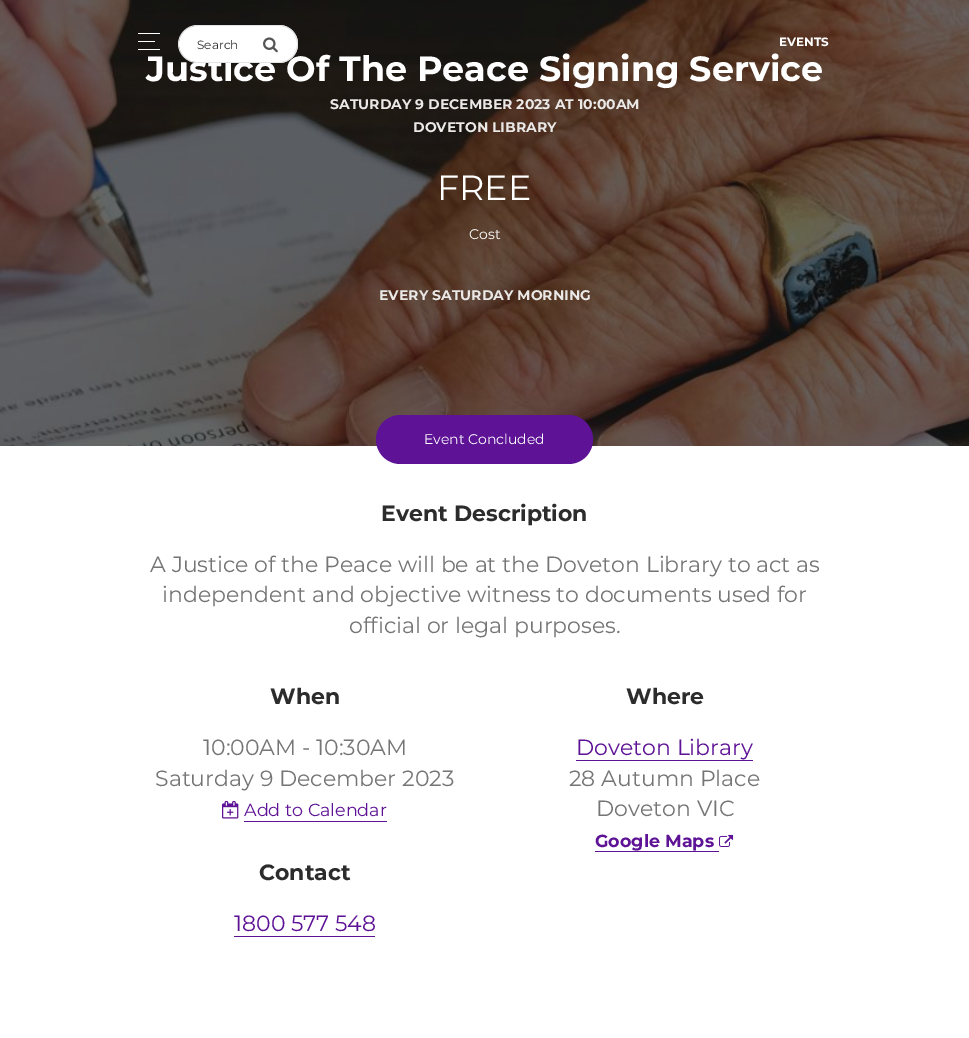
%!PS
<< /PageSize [969 1038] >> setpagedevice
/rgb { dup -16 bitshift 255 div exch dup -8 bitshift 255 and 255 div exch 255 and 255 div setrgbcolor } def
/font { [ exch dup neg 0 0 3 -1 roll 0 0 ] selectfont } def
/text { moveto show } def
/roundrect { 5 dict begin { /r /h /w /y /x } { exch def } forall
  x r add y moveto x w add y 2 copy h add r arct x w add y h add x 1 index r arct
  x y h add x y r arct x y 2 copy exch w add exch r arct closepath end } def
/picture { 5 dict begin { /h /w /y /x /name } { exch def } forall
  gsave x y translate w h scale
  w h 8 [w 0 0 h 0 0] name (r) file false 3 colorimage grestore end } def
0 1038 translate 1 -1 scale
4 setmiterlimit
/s1 { /Montserrat-Bold 35 font 16#FFFFFF rgb } def
/s2 { /Montserrat-Regular 12 font 16#2C2C2C rgb } def
/s3 { /Montserrat-Bold 12 font 16#FFFFFF rgb } def
/s4 { /Montserrat-Bold 14 font 16#EBE9E8 rgb } def
/s5 { /Montserrat-Regular 35 font 16#FFFFFF rgb } def
/s6 { /Montserrat-Regular 14 font 16#FFFFFF rgb } def
/s7 { /Montserrat-Bold 22 font 16#2C2C2C rgb } def
/s8 { /Montserrat-Regular 22 font 16#757575 rgb } def
/s9 { /Montserrat-Regular 17.5 font 16#5E1396 rgb } def
/s10 { /Montserrat-Regular 22 font 16#5E1396 rgb } def
/s11 { /Montserrat-Bold 17.5 font 16#5E1396 rgb } def
16#FFFFFF rgb
0 0 969 1038 rectfill
(pic2.raw) 0 0 969 446 picture
138 33 22 1 0.5 roundrect fill
138 41 17 1 0.5 roundrect fill
138 49 22 1 0.5 roundrect fill
197 26 moveto 262 26 lineto 262 62 lineto 197 62 lineto 187 62 179 54 179 44 curveto 179 34 187 26 197 26 curveto closepath fill
s1
(Justice Of The Peace Signing Service) 146 81 text
16#E3E3E3 rgb
197 25 moveto 262 25 lineto 262 63 lineto 197 63 lineto 187 63 178 54 178 44 curveto 178 34 187 25 197 25 curveto closepath 197 26 moveto 262 26 lineto 262 62 lineto 197 62 lineto 187 62 179 54 179 44 curveto 179 34 187 26 197 26 curveto closepath eofill
s2
(Search) 197 49 text
16#FFFFFF rgb
262 25 moveto 279 25 lineto 289.5 25 298 33.5 298 44 curveto 298 54.5 289.5 63 279 63 curveto 262 63 lineto closepath fill
16#E3E3E3 rgb
262 25 moveto 279 25 lineto 289.5 25 298 33.5 298 44 curveto 298 54.5 289.5 63 279 63 curveto 262 63 lineto closepath 262 26 moveto 279 26 lineto 289 26 297 34 297 44 curveto 297 54 289 62 279 62 curveto 262 62 lineto closepath eofill
(pic1.raw) 263 37 15 16 picture
s3
(EVENTS) 779 46 text
s4
(SATURDAY 9 DECEMBER 2023 AT 10:00AM) 330 109 text
(DOVETON LIBRARY) 413 132 text
s5
(FREE) 437 200 text
s6
(Cost) 469 239 text
s4
(EVERY SATURDAY MORNING) 379 300 text
16#5E1396 rgb
376 415 217 49 24.5 roundrect fill
s6
(Event Concluded) 424 444 text
s7
(Event Description) 381 521 text
s8
(A Justice of the Peace will be at the Doveton Library to act as) 150 572 text
(independent and objective witness to documents used for) 162 602 text
(official or legal purposes.) 349 633 text
s7
(When) 270 704 text
s8
(10:00AM - 10:30AM) 203 755 text
(Saturday 9 December 2023) 155 786 text
(pic3.raw) 222 800 17 19 picture
s9
(Add to Calendar) 244 816 text
244 821 143 1 rectfill
s7
(Contact) 259 880 text
s10
(1800 577 548) 234 931 text
234 936 141 1 rectfill
s7
(Where) 626 704 text
s10
(Doveton Library) 576 755 text
576 760 177 1 rectfill
s8
(28 Autumn Place) 569 786 text
(Doveton VIC) 596 816 text
s11
(Google Maps) 595 847 text
595 851 124 1 rectfill
(pic4.raw) 719 834 15 13 picture
showpage
